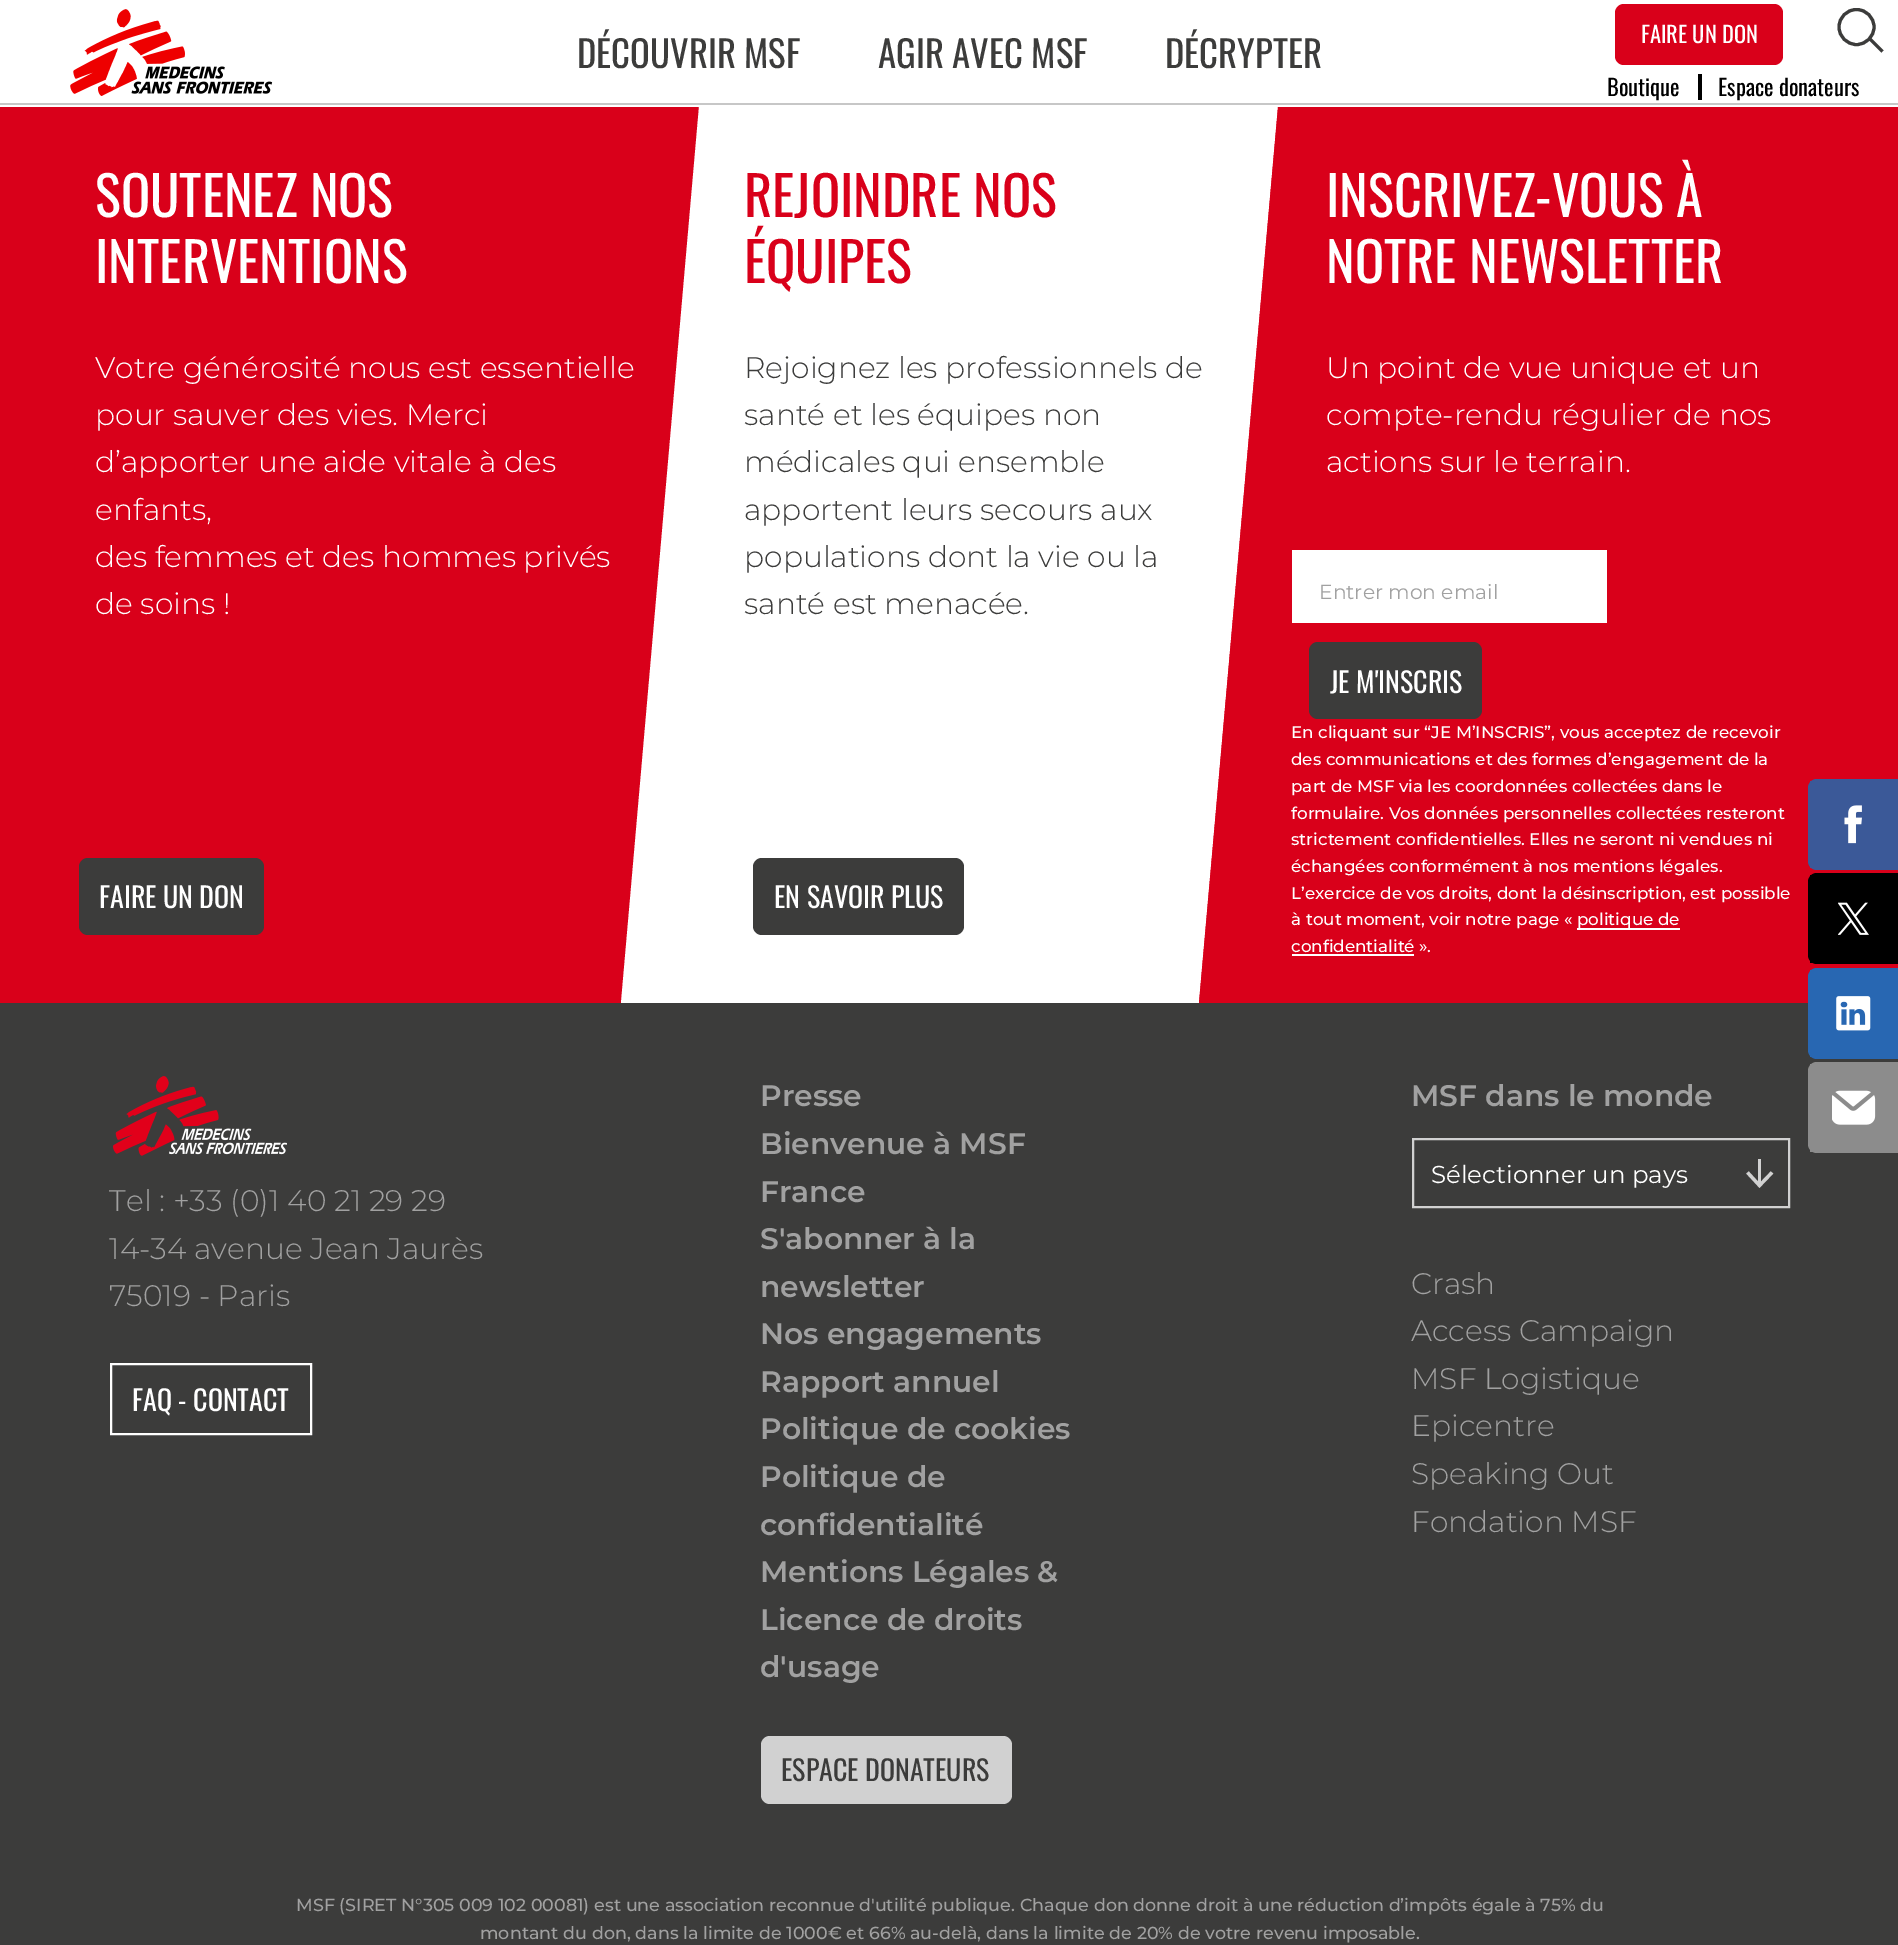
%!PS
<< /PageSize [1898 1945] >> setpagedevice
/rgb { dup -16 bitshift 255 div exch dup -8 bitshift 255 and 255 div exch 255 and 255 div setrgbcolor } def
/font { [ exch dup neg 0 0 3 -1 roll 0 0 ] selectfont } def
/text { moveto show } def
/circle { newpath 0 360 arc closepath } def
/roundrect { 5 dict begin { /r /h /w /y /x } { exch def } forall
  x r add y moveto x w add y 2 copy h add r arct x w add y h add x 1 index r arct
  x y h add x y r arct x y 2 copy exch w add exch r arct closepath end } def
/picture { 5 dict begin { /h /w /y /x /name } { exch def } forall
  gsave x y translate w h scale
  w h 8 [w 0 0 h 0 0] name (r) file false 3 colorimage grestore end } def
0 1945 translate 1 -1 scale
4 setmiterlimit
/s1 { /Oswald-Regular 36.75 font 16#3C3C3B rgb } def
/s2 { /Oswald-Regular 22.5 font 16#FFFFFF rgb } def
/s3 { /Oswald-Regular 22.5 font 16#000000 rgb } def
/s4 { /Oswald-Regular 54.25 font 16#FFFFFF rgb } def
/s5 { /Montserrat-Thin 29.75 font 16#FFFFFF rgb } def
/s6 { /Oswald-Regular 28 font 16#FFFFFF rgb } def
/s7 { /Oswald-Regular 54.25 font 16#D9001A rgb } def
/s8 { /Montserrat-Thin 29.75 font 16#3C3C3B rgb } def
/s9 { /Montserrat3-Thin 20.25 font 16#A1A1A1 rgb } def
/s10 { /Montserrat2-Thin 16.8 font 16#FFFFFF rgb } def
/s11 { /Montserrat-Thin 29.75 font 16#A1A1A1 rgb } def
/s12 { /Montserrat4-Thin 29.75 font 16#A1A1A1 rgb } def
/s13 { /Oswald-Regular 28 font 16#3C3C3B rgb } def
/s14 { /Montserrat3-Thin 24.5 font 16#FFFFFF rgb } def
/s15 { /Montserrat2-Thin 17.5 font 16#A1A1A1 rgb } def
16#FFFFFF rgb
0 0 1898 1945 rectfill
16#C7C7C7 rgb
0 103 1898 2 rectfill
(pic1.raw) 70 9 203 87 picture
s1
(DÉCOUVRIR MSF) 577 68 text
(AGIR AVEC MSF) 878 68 text
(DÉCRYPTER) 1165 68 text
16#D9001A rgb
1615 4 168 61 9 roundrect fill
s2
(FAIRE UN DON) 1641 43 text
16#3C3C3B rgb
3.1 setlinewidth
1856.5 27 17.5 circle stroke
1869.5 38.5 moveto 1882.5 51.5 lineto stroke
16#000000 rgb
1698 74 4 26 rectfill
(Boutique) 1607 96 text
(Espace donateurs) 1718 96 text
16#D9001A rgb
0 107 1898 896 rectfill
s4
(SOUTENEZ NOS) 95 217 text
(INTERVENTIONS) 95 283 text
s5
(Votre générosité nous est essentielle) 95 378 text
(pour sauver des vies. Merci) 95 425 text
(d’apporter une aide vitale à des) 95 472 text
(enfants,) 95 520 text
(des femmes et des hommes privés) 95 567 text
(de soins !) 95 614 text
16#3C3C3B rgb
79 858 185 77 9 roundrect fill
s6
(FAIRE UN DON) 99 908 text
699 107 moveto 1278 107 lineto 1199 1003 lineto 621 1003 lineto closepath fill
s7
(REJOINDRE NOS) 744 217 text
(ÉQUIPES) 744 283 text
s8
(Rejoignez les professionnels de) 744 378 text
(santé et les équipes non) 744 425 text
(médicales qui ensemble) 744 472 text
(apportent leurs secours aux) 744 520 text
(populations dont la vie ou la) 744 567 text
(santé est menacée.) 744 614 text
753 858 211 77 9 roundrect fill
s6
(EN SAVOIR PLUS) 774 908 text
16#D9001A rgb
1278 107 moveto 1857 107 lineto 1778 1003 lineto 1199 1003 lineto closepath fill
s4
(INSCRIVEZ-VOUS À) 1326 217 text
(NOTRE NEWSLETTER) 1326 283 text
s5
(Un point de vue unique et un) 1326 378 text
(compte-rendu régulier de nos) 1326 425 text
(actions sur le terrain.) 1326 472 text
1292 550 315 73 rectfill
s9
(Entrer mon email) 1319 599 text
16#3C3C3B rgb
1309 642 173 77 9 roundrect fill
s6
(JE M'INSCRIS) 1330 693 text
s10
(En cliquant sur “JE M’INSCRIS”, vous acceptez de recevoir) 1291 738 text
(des communications et des formes d’engagement de la) 1291 765 text
(part de MSF via les coordonnées collectées dans le) 1291 792 text
(formulaire. Vos données personnelles collectées resteront) 1291 819 text
(strictement confidentielles. Elles ne seront ni vendues ni) 1291 845 text
(échangées conformément à nos mentions légales.) 1291 872 text
(L’exercice de vos droits, dont la désinscription, est possible) 1291 899 text
(à tout moment, voir notre page «) 1291 925 text
1577 928 103 2 rectfill
(politique de) 1577 925 text
(confidentialité) 1291 952 text
1292 954 122 2 rectfill
(».) 1419 952 text
16#3B5998 rgb
1819 779 moveto 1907 779 lineto 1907 870 lineto 1819 870 lineto 1814 870 1810 866 1810 861 curveto 1810 788 lineto 1810 783 1814 779 1819 779 curveto closepath fill
1808 779 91 91 9 roundrect fill
1810 781 2 87 rectfill
(pic2.raw) 1844 805 18 39 picture
16#000000 rgb
1819 873 moveto 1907 873 lineto 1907 964 lineto 1819 964 lineto 1814 964 1810 960 1810 955 curveto 1810 882 lineto 1810 877 1814 873 1819 873 curveto closepath fill
1808 873 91 91 9 roundrect fill
1810 875 3 88 rectfill
(pic3.raw) 1838 902 31 33 picture
16#3C3C3B rgb
0 1003 1898 942 rectfill
16#2867B2 rgb
1819 968 moveto 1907 968 lineto 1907 1059 lineto 1819 1059 lineto 1814 1059 1810 1055 1810 1050 curveto 1810 977 lineto 1810 972 1814 968 1819 968 curveto closepath fill
1808 968 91 91 9 roundrect fill
1810 970 2 87 rectfill
(pic4.raw) 1836 996 35 35 picture
16#8C8C8C rgb
1819 1062 moveto 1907 1062 lineto 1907 1153 lineto 1819 1153 lineto 1814 1153 1810 1149 1810 1144 curveto 1810 1071 lineto 1810 1066 1814 1062 1819 1062 curveto closepath fill
1808 1062 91 91 9 roundrect fill
1810 1064 3 88 rectfill
(pic5.raw) 1832 1090 44 35 picture
(pic6.raw) 113 1076 174 80 picture
s11
(Tel : +33 \(0\)1 40 21 29 29) 109 1211 text
(14-34 avenue Jean Jaurès) 109 1259 text
(75019 - Paris) 109 1306 text
16#FFFFFF rgb
2 setlinewidth
111 1364 200 70 rectstroke
s6
(FAQ - CONTACT) 132 1411 text
s12
(Presse) 760 1106 text
(Bienvenue à MSF) 760 1154 text
(France) 760 1202 text
(S'abonner à la) 760 1249 text
(newsletter) 760 1297 text
(Nos engagements) 760 1344 text
(Rapport annuel) 760 1392 text
(Politique de cookies) 760 1439 text
(Politique de) 760 1487 text
(confidentialité) 760 1535 text
(Mentions Légales &) 760 1582 text
(Licence de droits) 760 1630 text
(d'usage) 760 1677 text
16#D1D1D1 rgb
761 1736 251 68 9 roundrect fill
s13
(ESPACE DONATEURS) 781 1781 text
s12
(MSF dans le monde) 1411 1106 text
16#D1D1D1 rgb
1413 1139 376 68 rectstroke
s14
(Sélectionner un pays) 1431 1183 text
16#D1D1D1 rgb
3.3 setlinewidth
1747.5 1172.5 moveto 1759.5 1185.5 lineto 1772 1172.5 lineto stroke
1758 1159 3 27 rectfill
s11
(Crash) 1411 1294 text
(Access Campaign) 1411 1341 text
(MSF Logistique) 1411 1389 text
(Epicentre) 1411 1436 text
(Speaking Out) 1411 1484 text
(Fondation MSF) 1411 1532 text
s15
(MSF \(SIRET N°305 009 102 00081\) est une association reconnue d'utilité publique. Chaque don donne droit à une réduction d’impôts égale à 75% du) 296 1911 text
(montant du don, dans la limite de 1000€ et 66% au-delà, dans la limite de 20% de votre revenu imposable.) 480 1939 text
showpage
